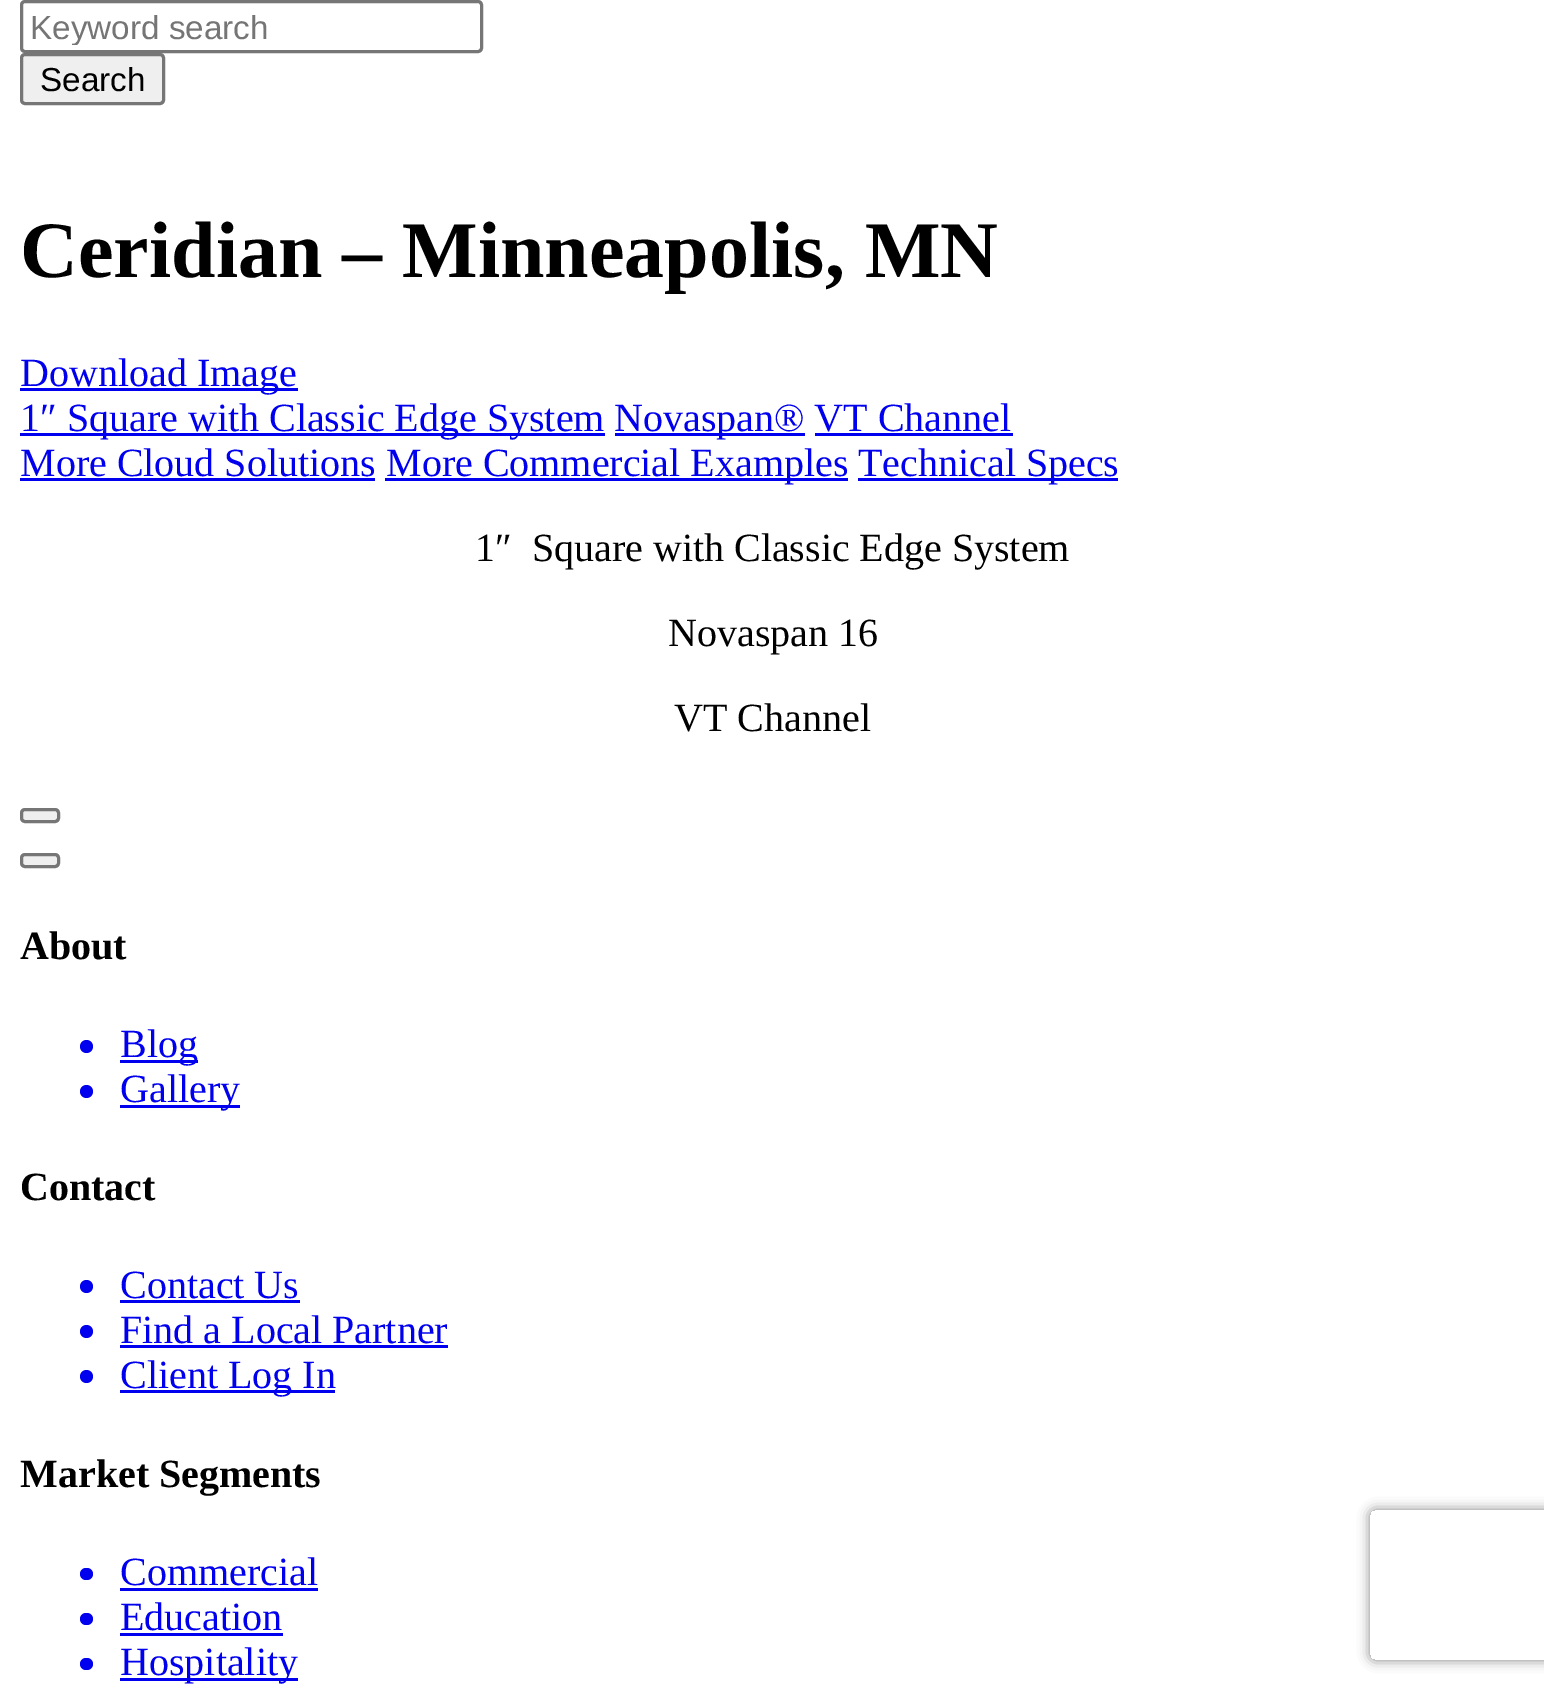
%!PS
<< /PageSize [1544 1693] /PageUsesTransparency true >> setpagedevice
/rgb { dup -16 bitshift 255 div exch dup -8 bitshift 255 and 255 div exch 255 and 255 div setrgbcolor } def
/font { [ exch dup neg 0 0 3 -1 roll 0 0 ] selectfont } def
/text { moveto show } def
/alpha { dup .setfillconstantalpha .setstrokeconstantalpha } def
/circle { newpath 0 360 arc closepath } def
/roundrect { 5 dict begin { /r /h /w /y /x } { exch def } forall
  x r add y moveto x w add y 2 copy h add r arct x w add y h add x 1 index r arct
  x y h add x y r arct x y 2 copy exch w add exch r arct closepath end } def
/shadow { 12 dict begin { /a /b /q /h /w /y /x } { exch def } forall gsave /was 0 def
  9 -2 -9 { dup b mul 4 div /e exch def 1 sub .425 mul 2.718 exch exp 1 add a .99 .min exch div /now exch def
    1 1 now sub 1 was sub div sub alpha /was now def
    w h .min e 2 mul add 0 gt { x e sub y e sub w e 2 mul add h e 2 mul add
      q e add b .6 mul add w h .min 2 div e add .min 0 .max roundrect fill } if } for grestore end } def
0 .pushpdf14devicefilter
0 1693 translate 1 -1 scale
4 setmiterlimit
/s1 { /LiberationSans-Regular 33.25 font 16#757575 rgb } def
/s2 { /LiberationSans-Regular 33.25 font 16#000000 rgb } def
/s3 { /LiberationSerif-Bold 80 font 16#000000 rgb } def
/s4 { /LiberationSerif-Regular 40 font 16#0000EE rgb } def
/s5 { /LiberationSerif-Regular 40 font 16#000000 rgb } def
/s6 { /LiberationSerif-Bold 40 font 16#000000 rgb } def
16#FFFFFF rgb
0 0 1544 1693 rectfill
16#767676 rgb
3 setlinewidth
21.5 1.5 460 50 3.5 roundrect stroke
gsave
30 8 410 37 rectclip
s1
(Keyword search) 30 39 text
grestore
16#EFEFEF rgb
21.5 54.5 142 49 3.5 roundrect gsave fill grestore
16#767676 rgb
stroke
s2
(Search) 40 91 text
s3
(Ceridian – Minneapolis, MN) 20 277 text
16#0000EE rgb
20 388 278 3 rectfill
s4
(Download Image) 20 386 text
20 433 585 3 rectfill
(1″ Square with Classic Edge System) 20 431 text
615 433 190 3 rectfill
(Novaspan® VT Channel) 614 431 text
815 433 198 3 rectfill
(More Cloud Solutions) 20 476 text
20 478 355 3 rectfill
385 478 463 3 rectfill
(More Commercial Examples) 386 476 text
858 478 260 3 rectfill
(Technical Specs) 858 476 text
s5
(1″  Square with Classic Edge System) 475 561 text
(Novaspan 16) 668 646 text
(VT Channel) 674 731 text
16#EFEFEF rgb
21.5 809.5 37 12 3.5 roundrect gsave fill grestore
16#767676 rgb
stroke
16#EFEFEF rgb
21.5 854.5 37 12 3.5 roundrect gsave fill grestore
16#767676 rgb
stroke
s6
(About) 20 959 text
16#0000EE rgb
86.5 1046.5 6.5 circle fill
120 1060 78 3 rectfill
s4
(Blog) 120 1057 text
86.5 1091.5 6.5 circle fill
120 1105 120 3 rectfill
(Gallery) 120 1102 text
s6
(Contact) 20 1200 text
16#0000EE rgb
86.5 1286.5 6.5 circle fill
s4
(Contact Us) 120 1298 text
120 1300 180 3 rectfill
86.5 1331.5 6.5 circle fill
(Find a Local Partner) 120 1343 text
120 1345 328 3 rectfill
86.5 1376.5 6.5 circle fill
120 1390 215 3 rectfill
(Client Log In) 120 1388 text
s6
(Market Segments) 20 1487 text
16#0000EE rgb
80 1568 13 12 6 roundrect fill
s4
(Commercial) 120 1585 text
120 1588 198 3 rectfill
80 1613 13 12 6 roundrect fill
(Education) 120 1630 text
120 1633 163 3 rectfill
80 1658 13 12 6 roundrect fill
120 1678 178 3 rectfill
(Hospitality) 120 1675 text
gsave
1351 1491 moveto 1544 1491 lineto 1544 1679 lineto 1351 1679 lineto closepath 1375 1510 moveto 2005 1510 lineto 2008 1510 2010 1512 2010 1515 curveto 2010 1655 lineto 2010 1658 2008 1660 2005 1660 curveto 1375 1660 lineto 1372 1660 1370 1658 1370 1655 curveto 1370 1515 lineto 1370 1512 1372 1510 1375 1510 curveto closepath eoclip newpath
16#808080 rgb
1370 1510 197 150 5 6 1 shadow
grestore
.poppdf14devicefilter showpage
